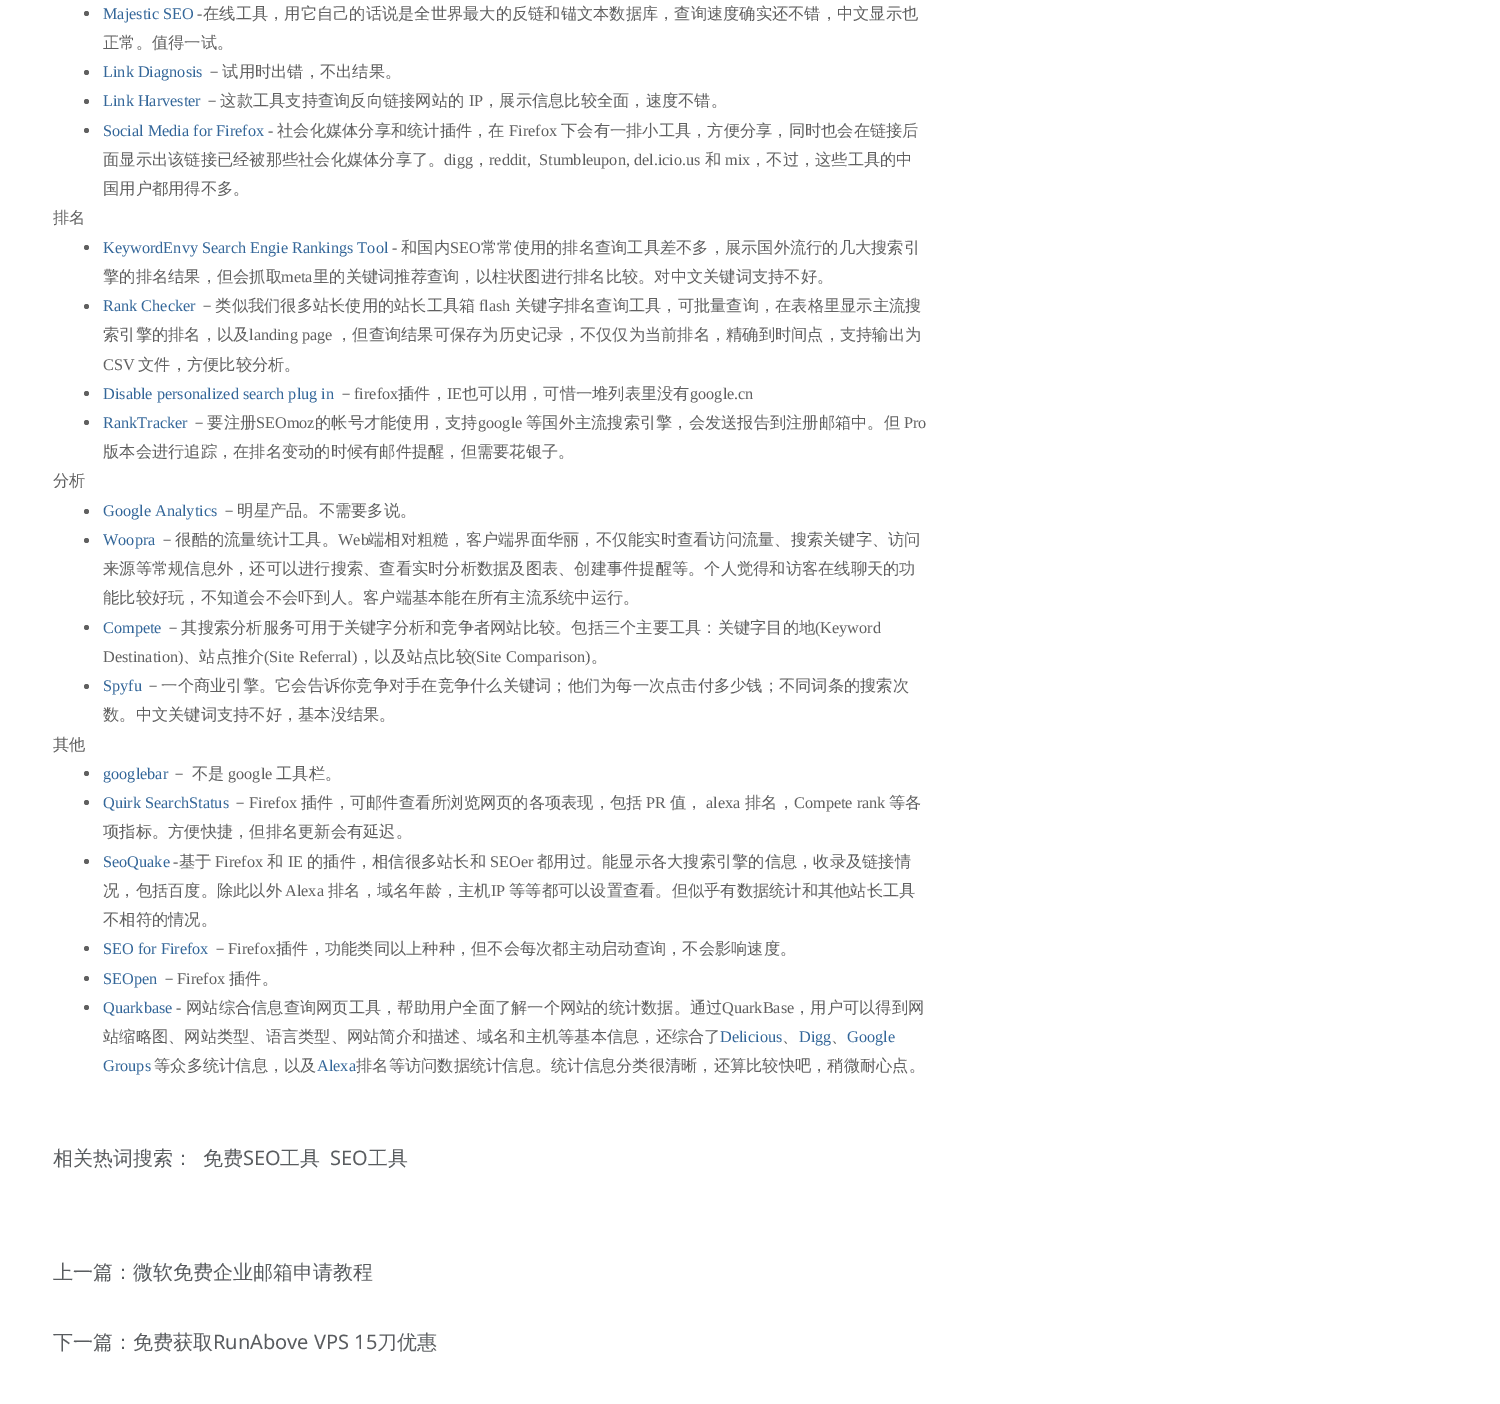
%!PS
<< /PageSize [1500 1404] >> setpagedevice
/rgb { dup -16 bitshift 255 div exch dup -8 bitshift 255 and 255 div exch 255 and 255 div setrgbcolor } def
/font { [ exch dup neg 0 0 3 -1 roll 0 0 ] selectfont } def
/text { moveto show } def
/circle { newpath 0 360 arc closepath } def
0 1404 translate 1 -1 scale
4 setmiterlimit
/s1 { /LiberationSerif-Regular 16.25 font 16#336699 rgb } def
/s2 { /LiberationSerif-Regular 16.25 font 16#606060 rgb } def
/s3 { /WenQuanYiZenHei-Medium 16.25 font 16#606060 rgb } def
/s4 { /WenQuanYiZenHei-Medium 20 font 16#595C5F rgb } def
/s5 { /NotoSans-Regular 20 font 16#595C5F rgb } def
16#FFFFFF rgb
0 0 1500 1404 rectfill
16#606060 rgb
86.5 13.5 2.5 circle fill
s1
(Majestic SEO) 103 19 text
s2
(-) 197 19 text
s3
(在线工具，用它自己的话说是全世界最大的反链和锚文本数据库，查询速度确实还不错，中文显示也) 203 19 text
(正常。值得一试。) 103 48 text
86.5 72.5 2.5 circle fill
s1
(Link Diagnosis) 103 77 text
s3
(－试用时出错，不出结果。) 206 77 text
86.5 101.5 2.5 circle fill
s1
(Link Harvester) 103 106 text
s3
(－这款工具支持查询反向链接网站的) 204 106 text
s2
(IP) 469 106 text
s3
(，展示信息比较全面，速度不错。) 483 106 text
86.5 130.5 2.5 circle fill
s1
(Social Media for Firefox) 103 136 text
s2
(-) 268 136 text
s3
(社会化媒体分享和统计插件，在) 277 136 text
s2
(Firefox) 509 136 text
s3
(下会有一排小工具，方便分享，同时也会在链接后) 561 136 text
(面显示出该链接已经被那些社会化媒体分享了。) 103 165 text
s2
(digg) 444 165 text
(reddit,  Stumbleupon, del.icio.us) 489 165 text
s3
(和) 705 165 text
s2
(mix) 725 165 text
s3
(，不过，这些工具的中) 750 165 text
(，) 473 165 text
(国用户都用得不多。) 103 194 text
(排名) 53 223 text
86.5 247.5 2.5 circle fill
s1
(KeywordEnvy Search Engie Rankings Tool) 103 253 text
s2
(-) 392 253 text
s3
(和国内) 401 253 text
s2
(SEO) 450 253 text
s3
(常常使用的排名查询工具差不多，展示国外流行的几大搜索引) 481 253 text
(擎的排名结果，但会抓取) 103 282 text
s2
(meta) 281 282 text
s3
(里的关键词推荐查询，以柱状图进行排名比较。对中文关键词支持不好。) 313 282 text
86.5 306.5 2.5 circle fill
s1
(Rank Checker) 103 311 text
s3
(－类似我们很多站长使用的站长工具箱) 199 311 text
s2
(flash) 479 311 text
s3
(关键字排名查询工具，可批量查询，在表格里显示主流搜) 515 311 text
(索引擎的排名，以及) 103 340 text
s2
(landing page) 249 340 text
s3
(，但查询结果可保存为历史记录，不仅仅为当前排名，精确到时间点，支持输出为) 336 340 text
s2
(CSV) 103 370 text
s3
(文件，方便比较分析。) 138 370 text
86.5 393.5 2.5 circle fill
s1
(Disable personalized search plug in) 103 399 text
s3
(－) 338 399 text
s2
(firefox) 354 399 text
s3
(插件，) 398 399 text
s2
(IE) 447 399 text
s3
(也可以用，可惜一堆列表里没有) 462 399 text
s2
(google.cn) 690 399 text
86.5 422.5 2.5 circle fill
s1
(RankTracker) 103 428 text
s3
(－要注册) 191 428 text
s2
(SEOmoz) 256 428 text
s3
(的帐号才能使用，支持) 315 428 text
s2
(google) 478 428 text
s3
(等国外主流搜索引擎，会发送报告到注册邮箱中。但) 526 428 text
s2
(Pro) 904 428 text
s3
(版本会进行追踪，在排名变动的时候有邮件提醒，但需要花银子。) 103 457 text
(分析) 53 486 text
86.5 511.5 2.5 circle fill
s1
(Google Analytics) 103 516 text
s3
(－明星产品。不需要多说。) 221 516 text
86.5 540.5 2.5 circle fill
s1
(Woopra) 103 545 text
s3
(－很酷的流量统计工具。) 159 545 text
s2
(Web) 338 545 text
s3
(端相对粗糙，客户端界面华丽，不仅能实时查看访问流量、搜索关键字、访问) 368 545 text
(来源等常规信息外，还可以进行搜索、查看实时分析数据及图表、创建事件提醒等。个人觉得和访客在线聊天的功) 103 574 text
(能比较好玩，不知道会不会吓到人。客户端基本能在所有主流系统中运行。) 103 603 text
86.5 627.5 2.5 circle fill
s1
(Compete) 103 633 text
s3
(－其搜索分析服务可用于关键字分析和竞争者网站比较。包括三个主要工具：关键字目的地) 165 633 text
s2
(\(Keyword) 815 633 text
(Destination\)) 103 662 text
s3
(、站点推介) 183 662 text
s2
(\(Site Referral\)) 264 662 text
s3
(，以及站点比较) 358 662 text
s2
(\(Site Comparison\)) 471 662 text
s3
(。) 591 662 text
86.5 686.5 2.5 circle fill
s1
(Spyfu) 103 691 text
s3
(－一个商业引擎。它会告诉你竞争对手在竞争什么关键词；他们为每一次点击付多少钱；不同词条的搜索次) 145 691 text
(数。中文关键词支持不好，基本没结果。) 103 720 text
(其他) 53 750 text
86.5 773.5 2.5 circle fill
s1
(googlebar) 103 779 text
s3
(－ 不是) 171 779 text
s2
(google) 228 779 text
s3
(工具栏。) 276 779 text
86.5 802.5 2.5 circle fill
s1
(Quirk SearchStatus) 103 808 text
s3
(－) 232 808 text
s2
(Firefox) 249 808 text
s3
(插件，可邮件查看所浏览网页的各项表现，包括) 301 808 text
s2
(PR) 646 808 text
s3
(值，) 670 808 text
s2
(alexa) 706 808 text
s3
(排名，) 745 808 text
s2
(Compete rank) 794 808 text
s3
(等各) 889 808 text
(项指标。方便快捷，但排名更新会有延迟。) 103 837 text
86.5 861.5 2.5 circle fill
s1
(SeoQuake) 103 867 text
s2
(-) 173 867 text
s3
(基于) 179 867 text
s2
(Firefox) 215 867 text
s3
(和) 267 867 text
s2
(IE) 288 867 text
s3
(的插件，相信很多站长和) 307 867 text
s2
(SEOer) 490 867 text
s3
(都用过。能显示各大搜索引擎的信息，收录及链接情) 537 867 text
(况，包括百度。除此以外) 103 896 text
s2
(Alexa) 285 896 text
s3
(排名，域名年龄，主机) 328 896 text
s2
(IP) 491 896 text
s3
(等等都可以设置查看。但似乎有数据统计和其他站长工具) 509 896 text
(不相符的情况。) 103 925 text
86.5 948.5 2.5 circle fill
s1
(SEO for Firefox) 103 954 text
s3
(－) 212 954 text
s2
(Firefox) 228 954 text
s3
(插件，功能类同以上种种，但不会每次都主动启动查询，不会影响速度。) 276 954 text
86.5 978.5 2.5 circle fill
s1
(SEOpen) 103 984 text
s3
(－) 161 984 text
s2
(Firefox) 177 984 text
s3
(插件。) 229 984 text
86.5 1007.5 2.5 circle fill
s1
(Quarkbase) 103 1013 text
s2
(-) 176 1013 text
s3
(网站综合信息查询网页工具，帮助用户全面了解一个网站的统计数据。通过) 186 1013 text
s2
(QuarkBase) 722 1013 text
s3
(，用户可以得到网) 794 1013 text
(站缩略图、网站类型、语言类型、网站简介和描述、域名和主机等基本信息，还综合了) 103 1042 text
s1
(Delicious) 720 1042 text
s3
(、) 782 1042 text
s1
(Digg) 799 1042 text
s3
(、) 831 1042 text
s1
(Google) 847 1042 text
(Groups) 103 1071 text
s3
(等众多统计信息，以及) 154 1071 text
s1
(Alexa) 317 1071 text
s3
(排名等访问数据统计信息。统计信息分类很清晰，还算比较快吧，稍微耐心点。) 356 1071 text
s4
(相关热词搜索：) 53 1165 text
(免费) 203 1165 text
s5
(SEO) 243 1165 text
s4
(工具) 280 1165 text
s5
(SEO) 330 1165 text
s4
(工具) 368 1165 text
(上一篇：微软免费企业邮箱申请教程) 53 1279 text
(下一篇：免费获取) 53 1349 text
s5
(RunAbove VPS 15) 213 1349 text
s4
(刀优惠) 377 1349 text
showpage
